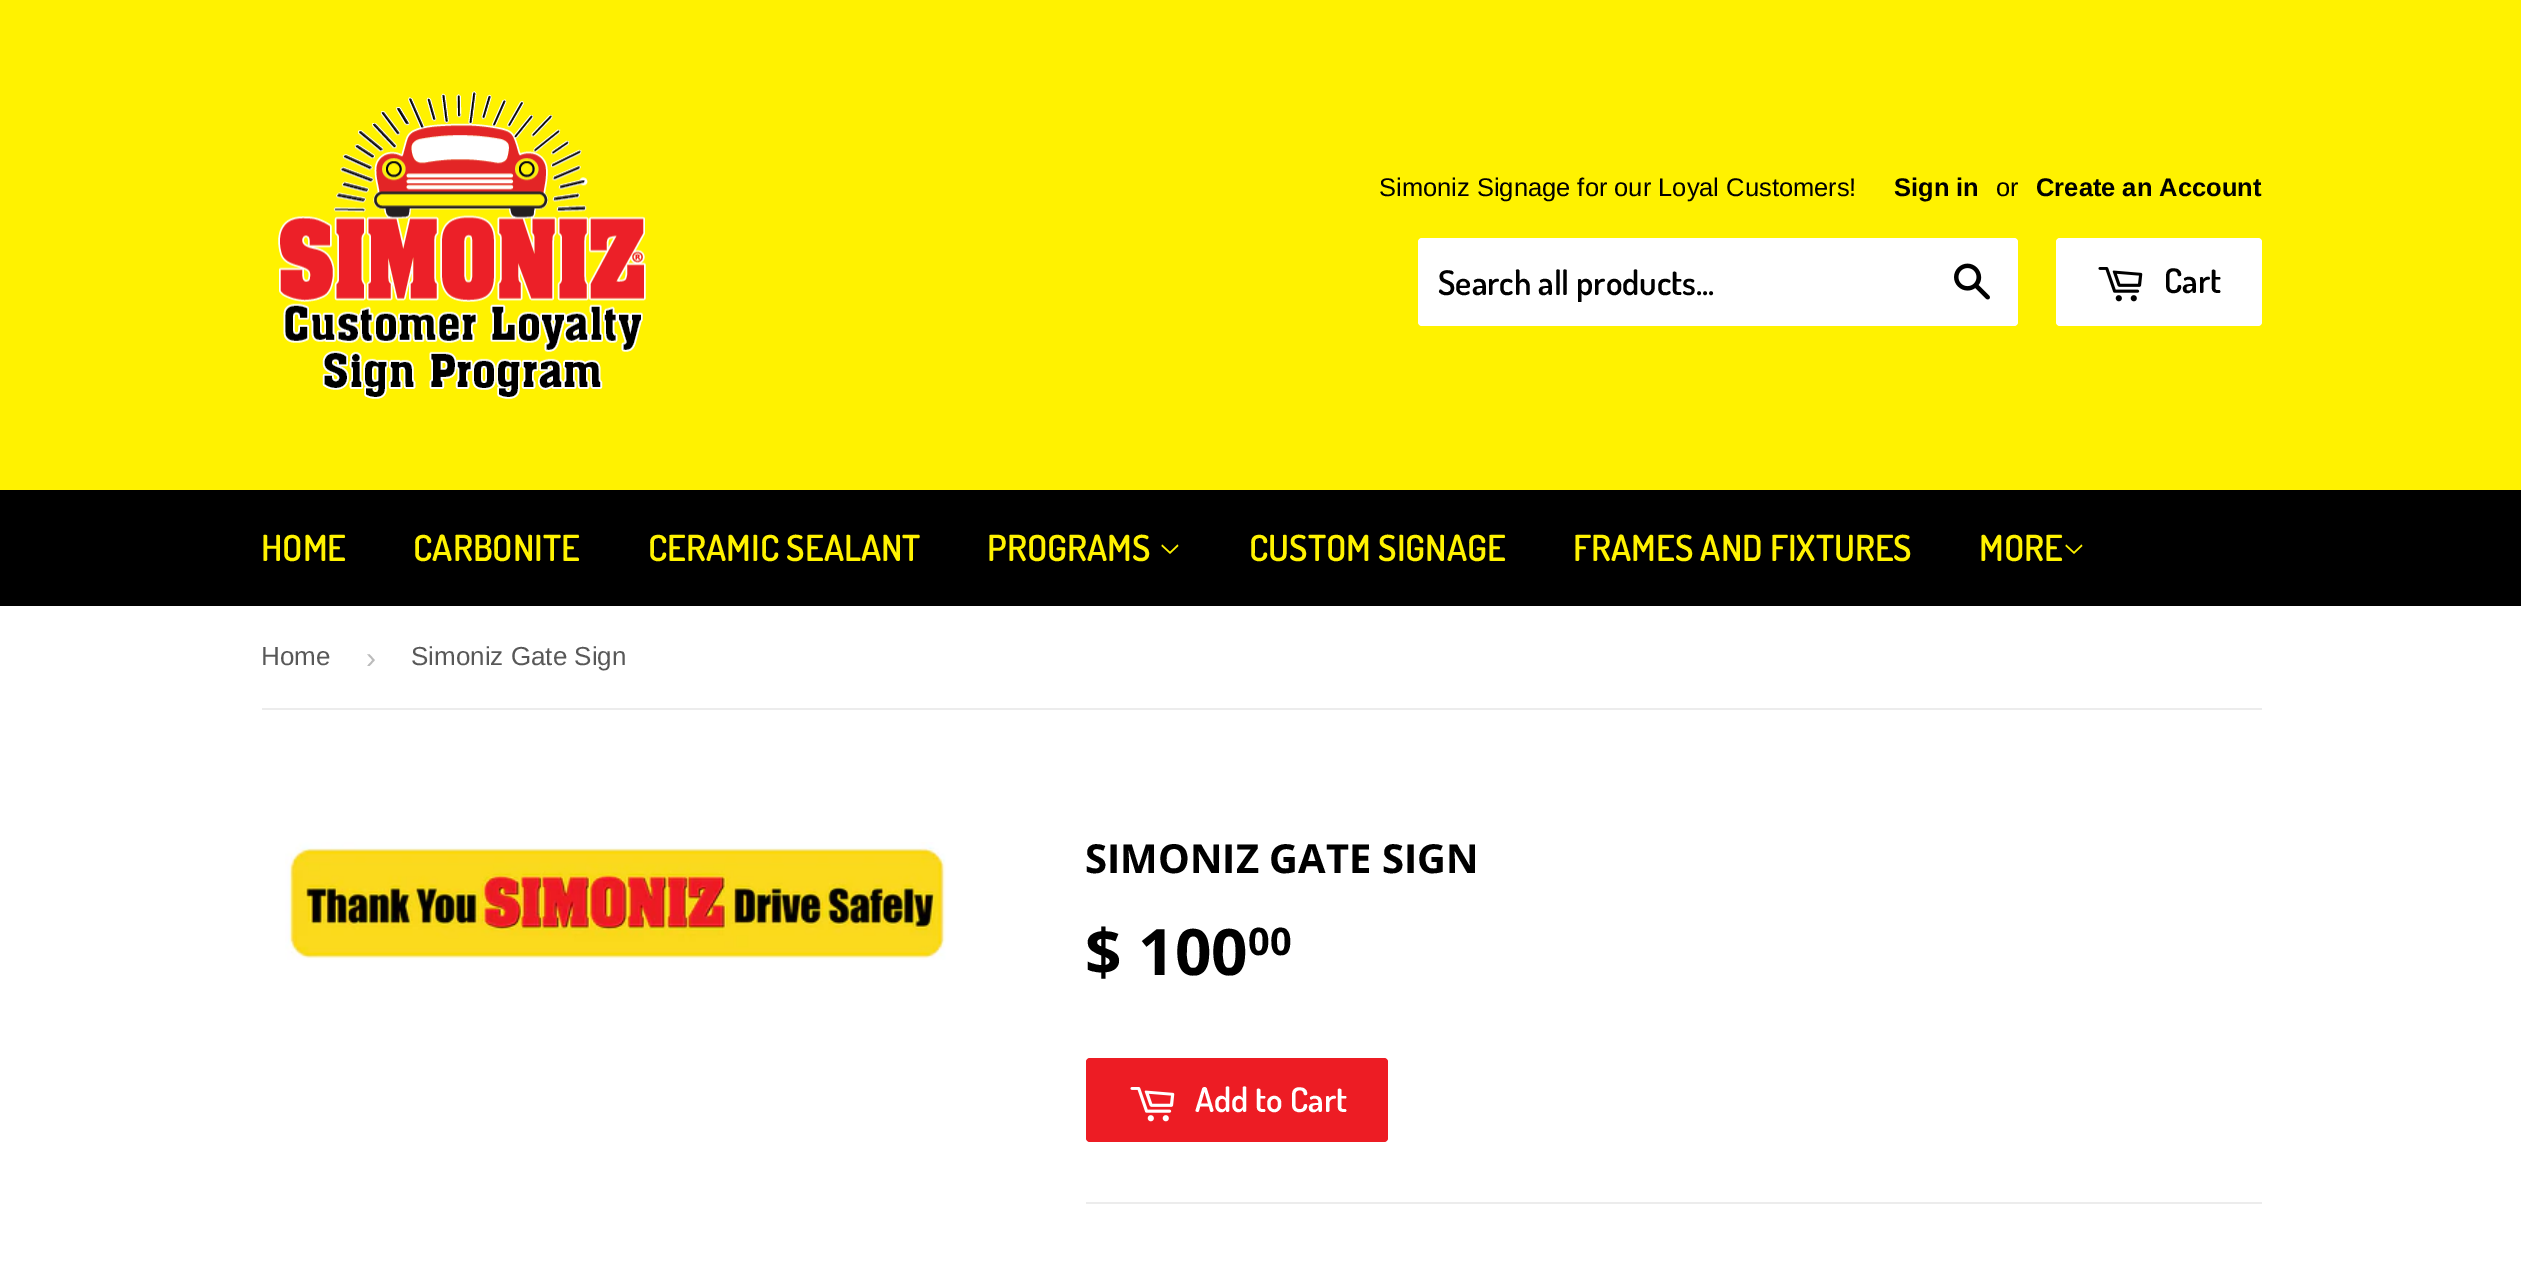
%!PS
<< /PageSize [2521 1283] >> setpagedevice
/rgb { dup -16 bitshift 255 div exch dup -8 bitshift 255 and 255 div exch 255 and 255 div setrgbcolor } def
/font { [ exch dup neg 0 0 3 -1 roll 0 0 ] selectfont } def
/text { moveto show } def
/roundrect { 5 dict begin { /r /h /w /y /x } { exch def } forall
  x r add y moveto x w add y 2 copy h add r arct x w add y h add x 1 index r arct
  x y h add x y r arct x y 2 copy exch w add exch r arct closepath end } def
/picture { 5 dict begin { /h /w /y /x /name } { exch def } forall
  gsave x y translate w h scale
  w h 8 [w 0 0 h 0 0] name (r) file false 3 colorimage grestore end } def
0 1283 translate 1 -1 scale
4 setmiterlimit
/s1 { /LiberationSans-Regular 25.5 font 16#000000 rgb } def
/s2 { /LiberationSans-Bold 25.5 font 16#000000 rgb } def
/s3 { /Dosis-SemiBold 34 font 16#000000 rgb } def
/s4 { /Dosis-SemiBold 36 font 16#FFF200 rgb } def
/s5 { /LiberationSans-Regular 26 font 16#585858 rgb } def
/s6 { /LiberationSans-Regular 30 font 16#BBBBBB rgb } def
/s7 { /OpenSans-Bold 40 font 16#000000 rgb } def
/s8 { /OpenSans-Bold 64 font 16#000000 rgb } def
/s9 { /OpenSans-Bold 38 font 16#000000 rgb } def
/s10 { /Dosis-SemiBold 34 font 16#FFFFFF rgb } def
16#FFFFFF rgb
0 0 2521 1283 rectfill
16#FFF200 rgb
0 0 2521 490 rectfill
(pic1.raw) 278 91 368 308 picture
s1
(Simoniz Signage for our Loyal Customers!) 1379 196 text
s2
(Sign in) 1894 196 text
s1
(or) 1996 196 text
s2
(Create an Account) 2036 196 text
16#FFFFFF rgb
1418 238 600 88 4 roundrect fill
gsave
1438 260 482 42 rectclip
s3
(Search all products...) 1438 295 text
grestore
(pic2.raw) 1954 263 36 37 picture
2056 238 206 88 4 roundrect fill
(pic3.raw) 2098 267 45 35 picture
s3
(Cart) 2164 293 text
0 490 2521 116 rectfill
s4
(HOME) 261 561 text
(CARBONITE) 413 561 text
(CERAMIC SEALANT) 648 561 text
(PROGRAMS) 987 561 text
(pic4.raw) 1161 544 18 10 picture
(CUSTOM SIGNAGE) 1249 561 text
(FRAMES AND FIXTURES) 1573 561 text
(MORE) 1979 561 text
(pic4.raw) 2065 544 18 10 picture
16#ECECEC rgb
262 708 2000 2 rectfill
s5
(Home) 261 665 text
s6
(›) 366 668 text
s5
(Simoniz Gate Sign) 411 665 text
(pic5.raw) 285 842 661 118 picture
s7
(SIMONIZ GATE SIGN) 1085 873 text
s8
($ 100) 1085 975 text
s9
(00) 1248 955 text
16#ED1C24 rgb
1086 1058 302 84 4 roundrect fill
(pic6.raw) 1130 1087 45 35 picture
s10
(Add to Cart) 1195 1112 text
16#ECECEC rgb
1086 1202 1176 2 rectfill
showpage
